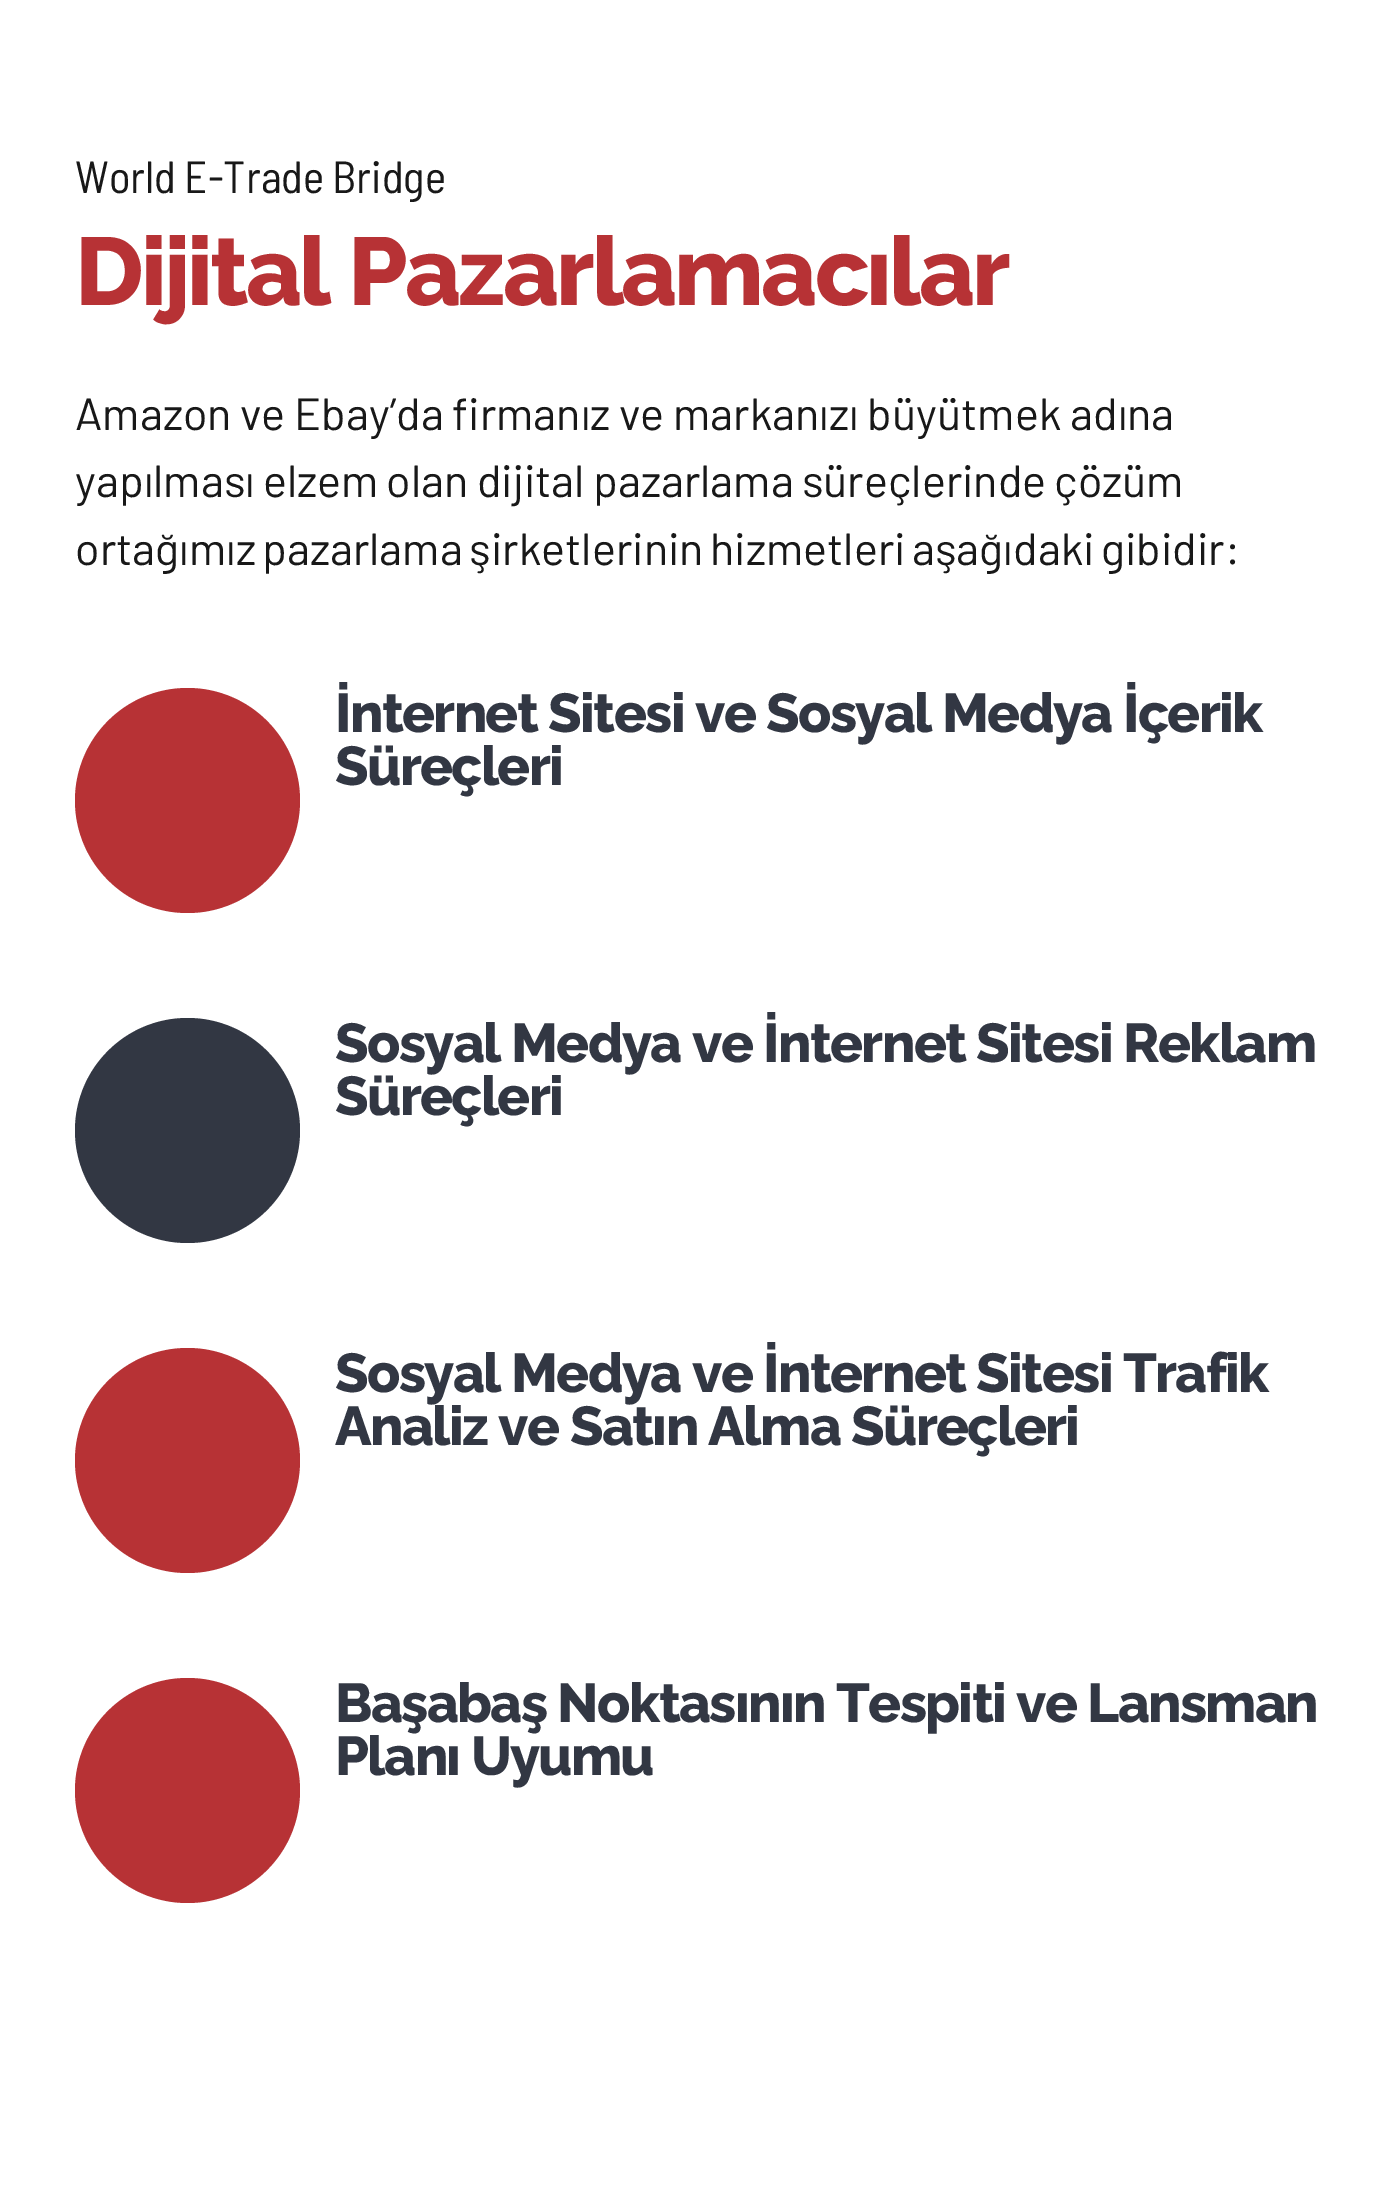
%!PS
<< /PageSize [1394 2192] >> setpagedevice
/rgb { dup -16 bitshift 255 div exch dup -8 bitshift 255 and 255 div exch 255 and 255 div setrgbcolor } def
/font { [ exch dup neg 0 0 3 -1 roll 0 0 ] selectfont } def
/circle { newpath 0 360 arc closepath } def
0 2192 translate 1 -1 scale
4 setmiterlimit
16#FFFFFF rgb
0 0 1394 2192 rectfill
/BarlowSemiCondensed-Regular 45 font
16#181818 rgb
75 193 moveto -1 0 32 (World E-Trade Bridge) widthshow
/Raleway-ExtraBold 96 font
16#B73235 rgb
75 305 moveto -2.9 0 (Dijital Pazarlamacılar) ashow
/Barlow-Regular 45 font
16#181818 rgb
75 430 moveto -0.25 0 32 (Amazon ve Ebay’da firmanız ve markanızı büyütmek adına) widthshow
75 497 moveto -1 0 32 (yapılması elzem olan dijital pazarlama süreçlerinde çözüm) widthshow
75 565 moveto -2.75 0 32 (ortağımız pazarlama şirketlerinin hizmetleri aşağıdaki gibidir:) widthshow
16#B73235 rgb
187.5 800.5 112.5 circle fill
/Raleway-ExtraBold 54.7 font
16#323743 rgb
335 732 moveto -1.65 0 (İnternet Sitesi ve Sosyal Medya İçerik) ashow
335 785 moveto -1.65 0 (Süreçleri) ashow
187.5 1130.5 112.5 circle fill
335 1062 moveto -1.65 0 (Sosyal Medya ve İnternet Sitesi Reklam) ashow
335 1115 moveto -1.65 0 (Süreçleri) ashow
16#B73235 rgb
187.5 1460.5 112.5 circle fill
16#323743 rgb
335 1392 moveto -1.65 0 (Sosyal Medya ve İnternet Sitesi Trafik) ashow
335 1445 moveto -1.65 0 (Analiz ve Satın Alma Süreçleri) ashow
16#B73235 rgb
187.5 1790.5 112.5 circle fill
16#323743 rgb
335 1722 moveto -1.65 0 (Başabaş Noktasının Tespiti ve Lansman) ashow
335 1775 moveto -1.65 0 (Planı Uyumu) ashow
showpage
